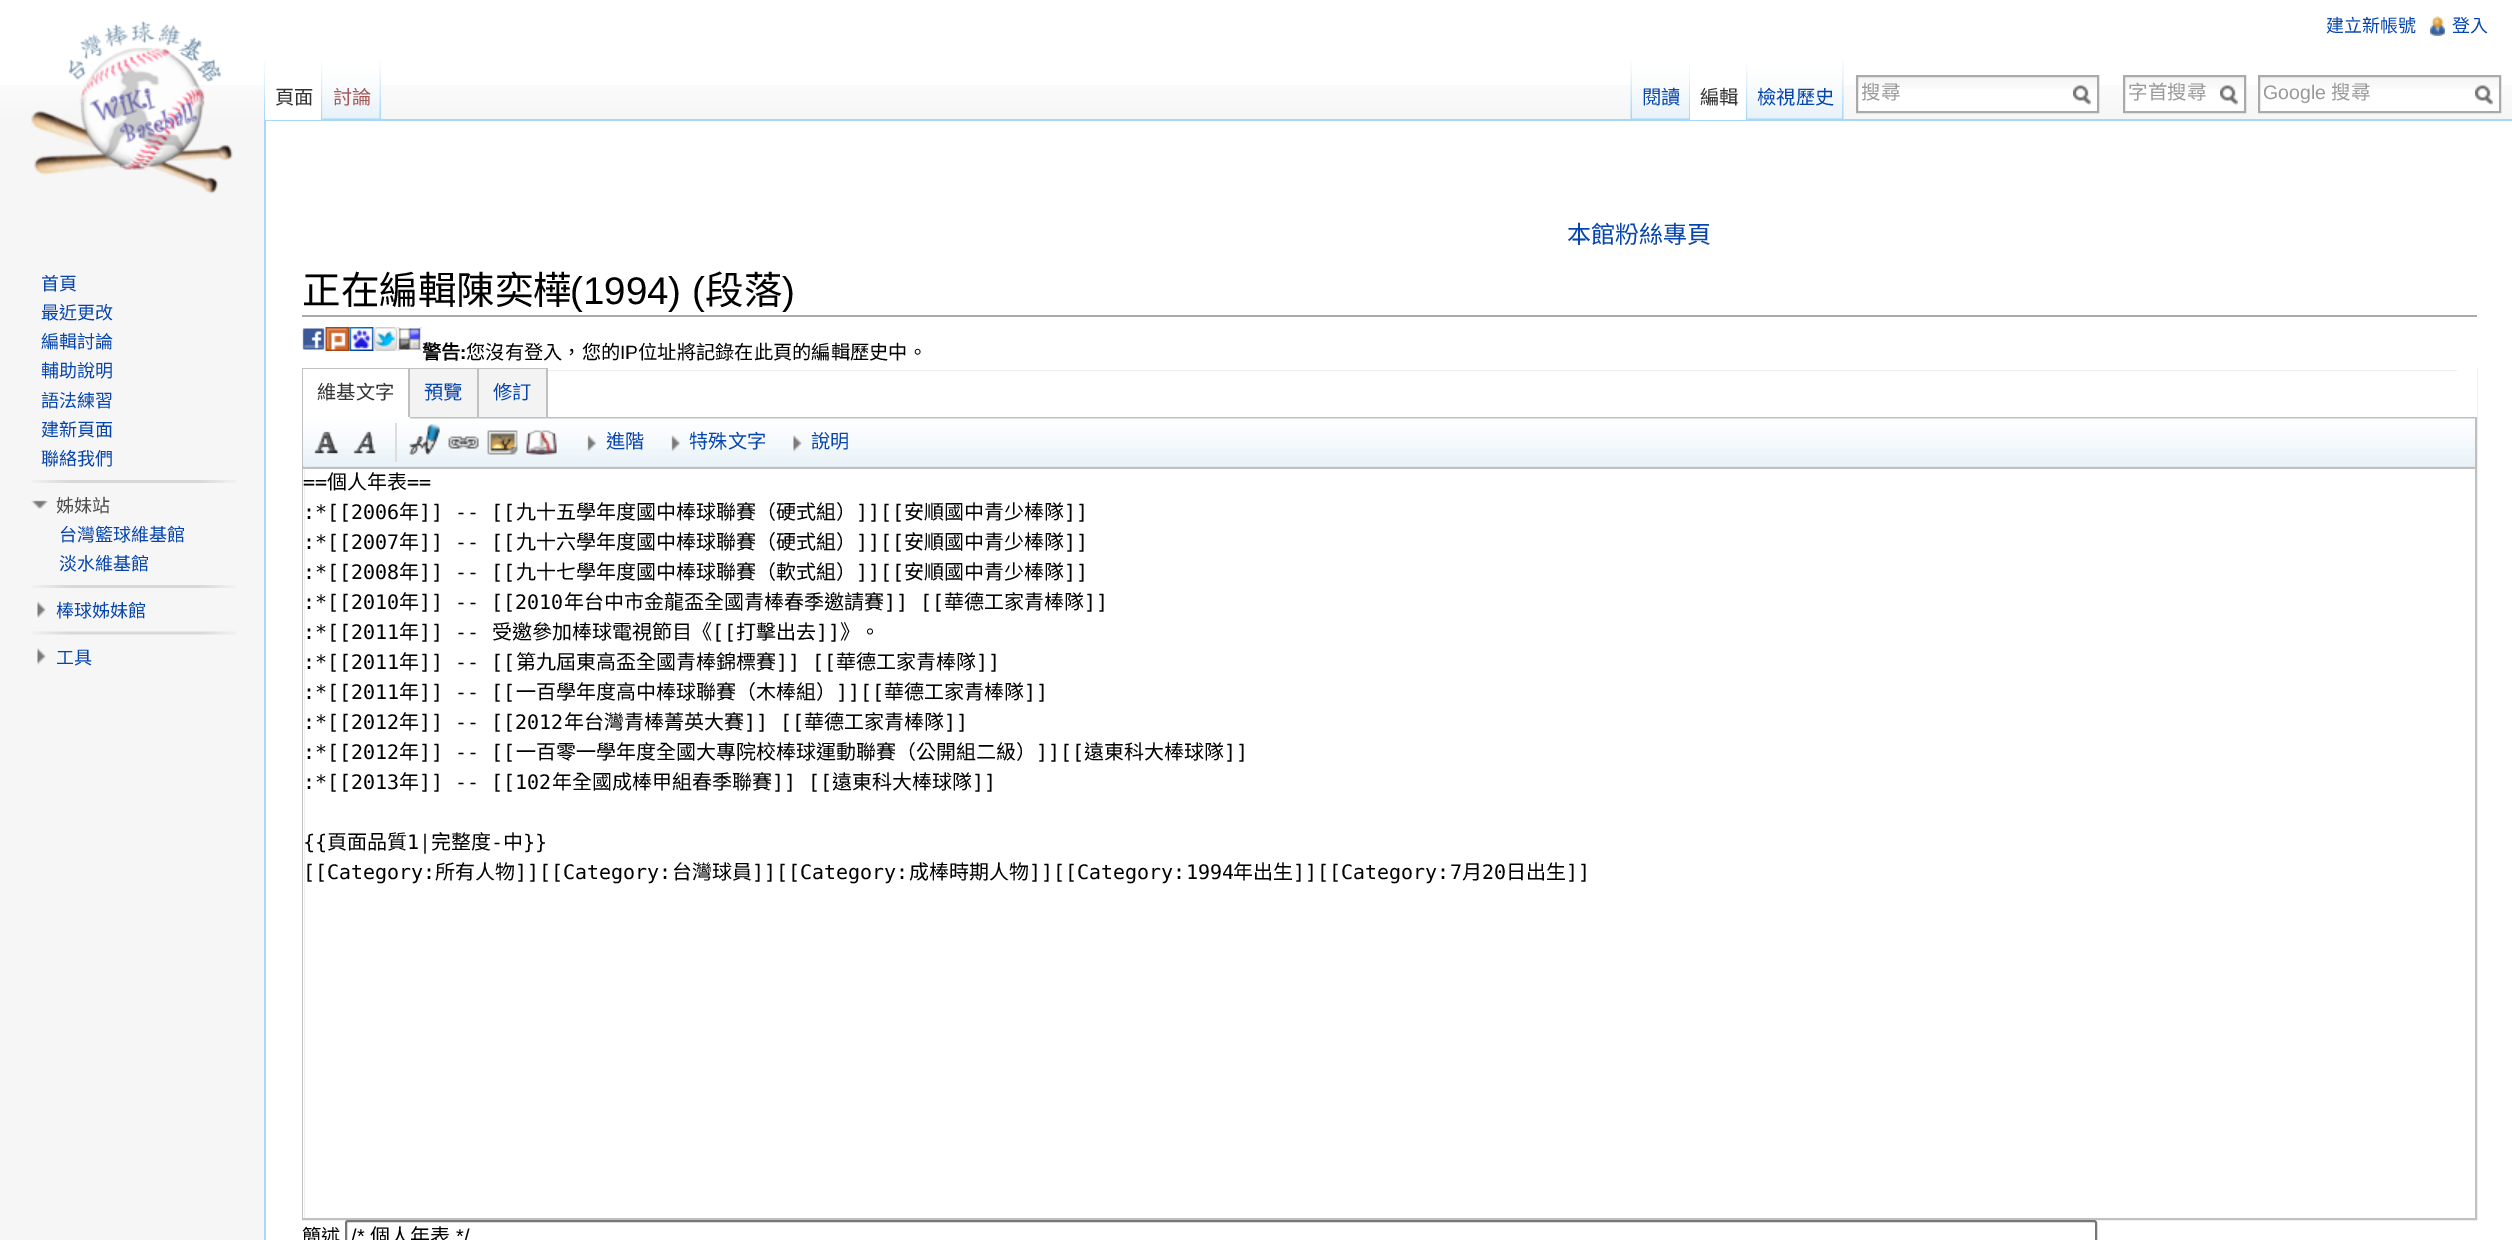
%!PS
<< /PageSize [2512 1240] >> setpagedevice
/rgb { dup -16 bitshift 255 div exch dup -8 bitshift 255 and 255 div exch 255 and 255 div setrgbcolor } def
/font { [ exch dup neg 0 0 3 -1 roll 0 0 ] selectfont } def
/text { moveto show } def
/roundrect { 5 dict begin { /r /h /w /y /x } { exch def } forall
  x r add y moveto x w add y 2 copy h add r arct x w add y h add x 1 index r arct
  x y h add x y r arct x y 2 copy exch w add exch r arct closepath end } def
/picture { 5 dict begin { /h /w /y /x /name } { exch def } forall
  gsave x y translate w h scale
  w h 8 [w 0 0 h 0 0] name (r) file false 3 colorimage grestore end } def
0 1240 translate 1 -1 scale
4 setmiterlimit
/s1 { /NotoSansCJKTC-Regular 18 font 16#0645AD rgb } def
/s2 { /NotoSansCJKTC-Regular 19.25 font 16#333333 rgb } def
/s3 { /NotoSansCJKTC-Regular 19.25 font 16#A55858 rgb } def
/s4 { /NotoSansCJKTC-Regular 19.25 font 16#0645AD rgb } def
/s5 { /NotoSansCJKTC-Regular 19.5 font 16#999999 rgb } def
/s6 { /LiberationSans-Regular 19.5 font 16#999999 rgb } def
/s7 { /NotoSansCJKTC-Regular 18 font 16#4D4D4D rgb } def
/s8 { /NotoSansCJKTC-Regular 24 font 16#0645AD rgb } def
/s9 { /NotoSansCJKTC-Regular 38.5 font 16#000000 rgb } def
/s10 { /LiberationSans-Regular 38.5 font 16#000000 rgb } def
/s11 { /NotoSansCJKTC-Bold 19.25 font 16#000000 rgb } def
/s12 { /LiberationSans-Bold 19.25 font 16#000000 rgb } def
/s13 { /NotoSansCJKTC-Regular 19.25 font 16#000000 rgb } def
/s14 { /LiberationSans-Regular 19.25 font 16#000000 rgb } def
/s15 { /DejaVuSansMono-Regular 20 font 16#000000 rgb } def
/s16 { /NotoSansCJKTC-Regular 20 font 16#000000 rgb } def
/s17 { /LiberationSans-Regular 20 font 16#000000 rgb } def
16#F6F6F6 rgb
0 0 2512 1240 rectfill
16#FFFFFF rgb
0 0 2512 85 rectfill
(pic1.raw) 0 85 2512 35 picture
s1
(建立新帳號) 2326 32 text
(pic2.raw) 2430 16 15 20 picture
(登入) 2452 32 text
(pic3.raw) 264 60 1 59 picture
16#A7D7F9 rgb
264 119 2248 2 rectfill
264 119 2 1121 rectfill
16#FFFFFF rgb
265 85 58 35 rectfill
(pic4.raw) 321 61 2 59 picture
s2
(頁面) 275 104 text
(pic5.raw) 322 60 59 60 picture
(pic6.raw) 379 61 2 58 picture
s3
(討論) 333 104 text
(pic7.raw) 1630 60 2 59 picture
(pic8.raw) 1632 60 58 60 picture
(pic9.raw) 1689 61 1 59 picture
s4
(閱讀) 1642 104 text
16#FFFFFF rgb
1690 85 58 35 rectfill
(pic4.raw) 1746 61 2 59 picture
s2
(編輯) 1700 104 text
16#F3F3F3 rgb
1843 60 1 60 rectfill
(pic10.raw) 1747 60 97 60 picture
(pic11.raw) 1842 61 2 59 picture
s4
(檢視歷史) 1757 104 text
16#FFFFFF rgb
1858 89 239 22 rectfill
(pic12.raw) 1855 76 242 13 picture
16#AAAAAA rgb
2 setlinewidth
1857 76 241 36 rectstroke
gsave
1862 77 216 28 rectclip
s5
(搜尋) 1861 99 text
grestore
(pic13.raw) 2073 85 18 20 picture
16#FFFFFF rgb
2125 89 119 22 rectfill
(pic14.raw) 2122 76 122 13 picture
16#AAAAAA rgb
2124 76 121 36 rectstroke
s5
(字首搜尋) 2128 99 text
(pic13.raw) 2220 85 18 20 picture
16#FFFFFF rgb
2260 89 239 22 rectfill
(pic12.raw) 2257 76 242 13 picture
16#AAAAAA rgb
2259 76 241 36 rectstroke
s6
(Google) 2263 99 text
s5
(搜尋) 2331 99 text
(pic13.raw) 2475 85 18 20 picture
(pic15.raw) 31 20 202 174 picture
s1
(首頁) 41 290 text
(最近更改) 41 319 text
(編輯討論) 41 348 text
(輔助說明) 41 377 text
(語法練習) 41 407 text
(建新頁面) 41 436 text
(聯絡我們) 41 465 text
(pic16.raw) 32 480 204 3 picture
(pic17.raw) 31 500 17 9 picture
s7
(姊妹站) 56 512 text
s1
(台灣籃球維基館) 59 541 text
(淡水維基館) 59 570 text
(pic16.raw) 32 585 204 3 picture
(pic18.raw) 37 601 9 17 picture
(棒球姊妹館) 56 617 text
(pic19.raw) 32 631 204 4 picture
(pic20.raw) 37 648 9 17 picture
(工具) 56 664 text
16#FFFFFF rgb
266 121 2246 1119 rectfill
s8
(本館粉絲專頁) 1567 243 text
16#AAAAAA rgb
302 315 2175 2 rectfill
s9
(正在編輯陳奕樺) 302 304 text
s10
(\(1994\) \() 570 304 text
s9
(段落) 705 304 text
s10
(\)) 782 304 text
(pic21.raw) 302 328 23 22 picture
(pic22.raw) 325 327 25 24 picture
(pic23.raw) 349 327 25 24 picture
(pic24.raw) 373 327 25 24 picture
(pic25.raw) 397 327 25 24 picture
s11
(警告) 422 359 text
s12
(:) 460 359 text
s13
(您沒有登入，您的) 466 359 text
s14
(IP) 620 359 text
s13
(位址將記錄在此頁的編輯歷史中。) 638 359 text
16#E0EEF7 rgb
304 466 2171 1 rectfill
16#C0C0C0 rgb
303 369 2173 850 rectstroke
16#FFFFFF rgb
548 368 1909 2 rectfill
16#C0C0C0 rgb
548 417 1927 2 rectfill
16#FFFFFF rgb
303 369 105 48 rectfill
16#C0C0C0 rgb
408 369 2 50 rectfill
16#FFFFFF rgb
303 417 107 2 rectfill
s2
(維基文字) 317 399 text
16#F3F3F3 rgb
410 369 67 48 rectfill
16#C0C0C0 rgb
477 369 2 50 rectfill
410 417 69 2 rectfill
s4
(預覽) 424 399 text
16#F3F3F3 rgb
479 369 67 48 rectfill
16#C0C0C0 rgb
546 369 2 50 rectfill
479 417 69 2 rectfill
s4
(修訂) 493 399 text
16#FFFFFF rgb
2457 368 20 49 rectfill
16#C0C0C0 rgb
303 467 2172 2 rectfill
(pic26.raw) 303 418 2172 49 picture
16#DDDDDD rgb
395 423 2 39 rectfill
(pic27.raw) 314 431 24 23 picture
(pic28.raw) 353 431 23 23 picture
(pic29.raw) 409 424 31 31 picture
(pic30.raw) 448 436 31 13 picture
(pic31.raw) 487 430 31 25 picture
(pic32.raw) 526 430 31 25 picture
(pic33.raw) 587 435 9 17 picture
s4
(進階) 606 448 text
(pic34.raw) 671 435 9 17 picture
(特殊文字) 689 448 text
(pic35.raw) 793 435 9 17 picture
(說明) 811 448 text
16#FFFFFF rgb
303 469 1 749 rectfill
s15
(==) 303 489 text
s16
(個人年表) 327 489 text
s15
(==) 407 489 text
(:*[[2006) 303 519 text
s16
(年) 399 519 text
s15
(]] -- [[) 419 519 text
s16
(九十五學年度國中棒球聯賽（硬式組）) 516 519 text
s15
(]][[) 856 519 text
s16
(安順國中青少棒隊) 904 519 text
s15
(]]) 1064 519 text
(:*[[2007) 303 549 text
s16
(年) 399 549 text
s15
(]] -- [[) 419 549 text
s16
(九十六學年度國中棒球聯賽（硬式組）) 516 549 text
s15
(]][[) 856 549 text
s16
(安順國中青少棒隊) 904 549 text
s15
(]]) 1064 549 text
(:*[[2008) 303 579 text
s16
(年) 399 579 text
s15
(]] -- [[) 419 579 text
s16
(九十七學年度國中棒球聯賽（軟式組）) 516 579 text
s15
(]][[) 856 579 text
s16
(安順國中青少棒隊) 904 579 text
s15
(]]) 1064 579 text
(:*[[2010) 303 609 text
s16
(年) 399 609 text
s15
(]] -- [[2010) 419 609 text
s16
(年台中市金龍盃全國青棒春季邀請賽) 564 609 text
s15
(]] [[) 884 609 text
s16
(華德工家青棒隊) 944 609 text
s15
(]]) 1084 609 text
(:*[[2011) 303 639 text
s16
(年) 399 639 text
s15
(]] --) 419 639 text
s16
(受邀參加棒球電視節目《) 492 639 text
s15
([[) 712 639 text
s16
(打擊出去) 736 639 text
s15
(]]) 816 639 text
s16
(》。) 840 639 text
s15
(:*[[2011) 303 669 text
s16
(年) 399 669 text
s15
(]] -- [[) 419 669 text
s16
(第九屆東高盃全國青棒錦標賽) 516 669 text
s15
(]] [[) 776 669 text
s16
(華德工家青棒隊) 836 669 text
s15
(]]) 976 669 text
(:*[[2011) 303 699 text
s16
(年) 399 699 text
s15
(]] -- [[) 419 699 text
s16
(一百學年度高中棒球聯賽（木棒組）) 516 699 text
s15
(]][[) 836 699 text
s16
(華德工家青棒隊) 884 699 text
s15
(]]) 1024 699 text
(:*[[2012) 303 729 text
s16
(年) 399 729 text
s15
(]] -- [[2012) 419 729 text
s16
(年台灣青棒菁英大賽) 564 729 text
s15
(]] [[) 744 729 text
s16
(華德工家青棒隊) 804 729 text
s15
(]]) 944 729 text
(:*[[2012) 303 759 text
s16
(年) 399 759 text
s15
(]] -- [[) 419 759 text
s16
(一百零一學年度全國大專院校棒球運動聯賽（公開組二級）) 516 759 text
s15
(]][[) 1036 759 text
s16
(遠東科大棒球隊) 1084 759 text
s15
(]]) 1224 759 text
(:*[[2013) 303 789 text
s16
(年) 399 789 text
s15
(]] -- [[102) 419 789 text
s16
(年全國成棒甲組春季聯賽) 552 789 text
s15
(]] [[) 772 789 text
s16
(遠東科大棒球隊) 832 789 text
s15
(]]) 972 789 text
({{) 303 849 text
s16
(頁面品質) 327 849 text
s15
(1|) 407 849 text
s16
(完整度) 431 849 text
s15
(-) 491 849 text
s16
(中) 503 849 text
s15
(}}) 523 849 text
([[Category:) 303 879 text
s16
(所有人物) 435 879 text
s15
(]][[Category:) 515 879 text
s16
(台灣球員) 672 879 text
s15
(]][[Category:) 752 879 text
s16
(成棒時期人物) 909 879 text
s15
(]][[Category:1994) 1029 879 text
s16
(年出生) 1233 879 text
s15
(]][[Category:7) 1293 879 text
s16
(月) 1462 879 text
s15
(20) 1482 879 text
s16
(日出生) 1506 879 text
s15
(]]) 1566 879 text
s13
(簡述) 302 1243 text
16#767676 rgb
346 1221 1750 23 2 roundrect stroke
s17
(/*) 351 1243 text
s16
(個人年表) 370 1243 text
s17
(*/) 456 1243 text
showpage
